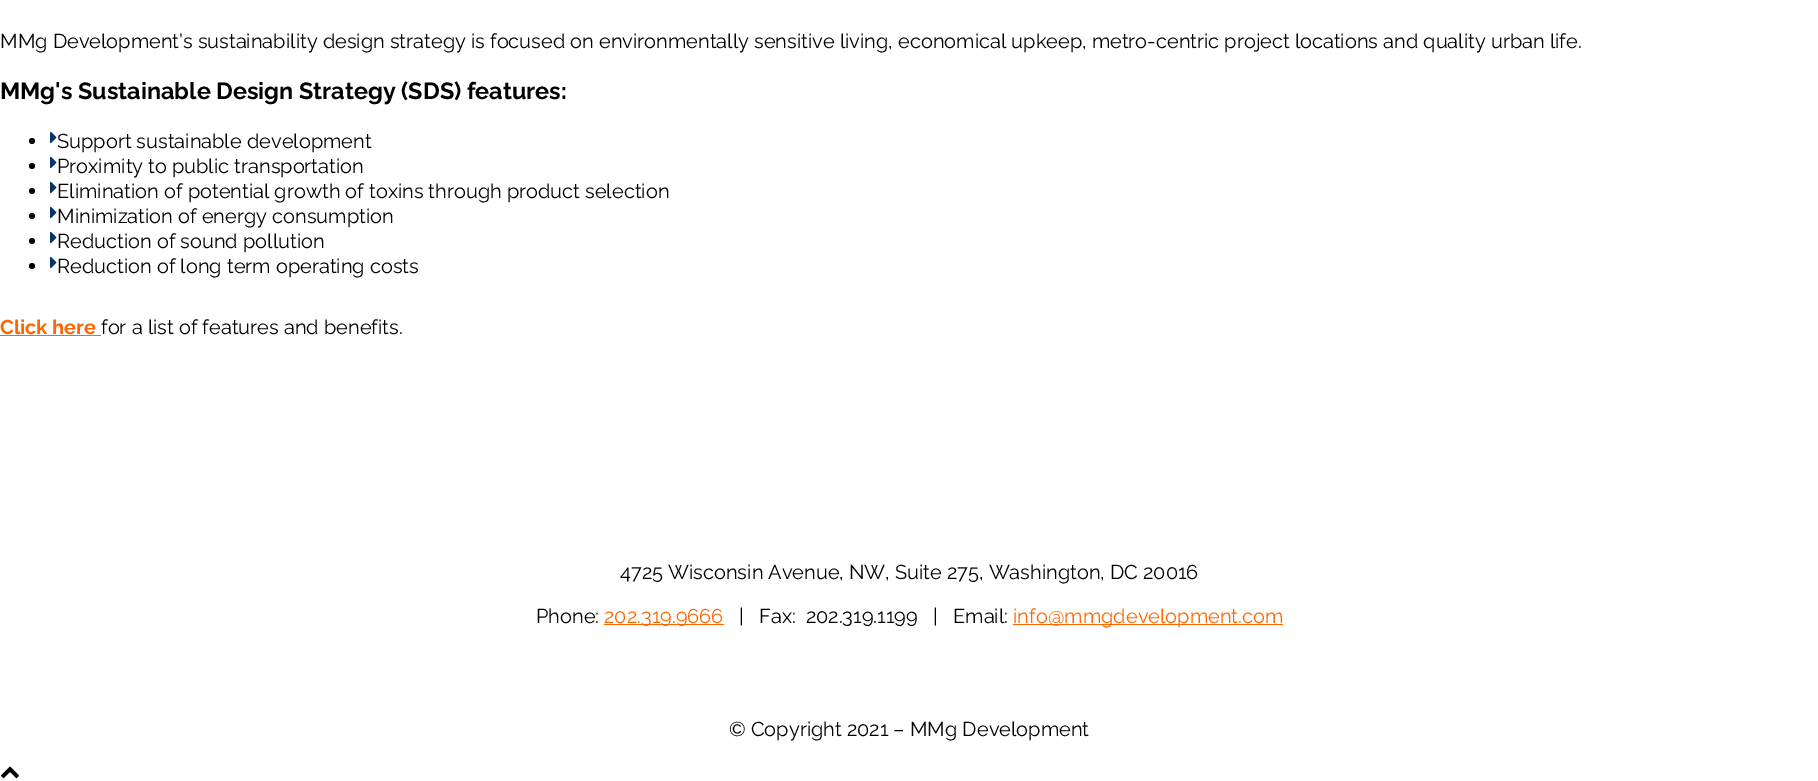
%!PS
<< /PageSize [1818 781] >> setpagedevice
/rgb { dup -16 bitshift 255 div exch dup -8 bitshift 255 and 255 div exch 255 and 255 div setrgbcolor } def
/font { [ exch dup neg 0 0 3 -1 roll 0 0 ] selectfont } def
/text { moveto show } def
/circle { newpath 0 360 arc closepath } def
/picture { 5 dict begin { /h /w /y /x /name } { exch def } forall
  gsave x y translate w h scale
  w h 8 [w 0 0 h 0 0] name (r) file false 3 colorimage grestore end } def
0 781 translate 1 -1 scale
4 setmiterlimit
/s1 { /Raleway-Regular 20 font 16#000000 rgb } def
/s2 { /Raleway-Bold 23.4 font 16#000000 rgb } def
/s3 { /Raleway-Bold 20 font 16#FF6600 rgb } def
/s4 { /Raleway-Regular 20 font 16#FF6600 rgb } def
16#FFFFFF rgb
0 0 1818 781 rectfill
s1
(MMg Development’s sustainability design strategy is focused on environmentally sensitive living, economical upkeep, metro-centric project locations and quality urban life.) 0 48 text
s2
(MMg's Sustainable Design Strategy \(SDS\) features:) 0 99 text
32 141 3 circle fill
(pic1.raw) 50 131 7 13 picture
s1
(Support sustainable development) 57 148 text
32 166 3 circle fill
(pic1.raw) 50 156 7 13 picture
(Proximity to public transportation) 57 173 text
32 191 3 circle fill
(pic1.raw) 50 181 7 13 picture
(Elimination of potential growth of toxins through product selection) 57 198 text
32 216 3 circle fill
(pic1.raw) 50 206 7 13 picture
(Minimization of energy consumption) 57 223 text
32 241 3 circle fill
(pic1.raw) 50 231 7 13 picture
(Reduction of sound pollution) 57 248 text
32 266 3 circle fill
(pic1.raw) 50 256 7 13 picture
(Reduction of long term operating costs) 57 273 text
s3
(Click here) 0 334 text
0 335 101 1 rectfill
s1
(for a list of features and benefits.) 101 334 text
(4725 Wisconsin Avenue, NW, Suite 275, Washington, DC 20016) 620 579 text
(Phone:) 536 623 text
16#FF6600 rgb
604 624 120 1 rectfill
(202.319.9666) 604 623 text
s1
(|   Fax:  202.319.1199   |   Email:) 739 623 text
16#FF6600 rgb
1013 624 270 1 rectfill
(info@mmgdevelopment.com) 1013 623 text
s1
(© Copyright 2021 – MMg Development) 729 736 text
(pic2.raw) 1 766 18 13 picture
showpage
